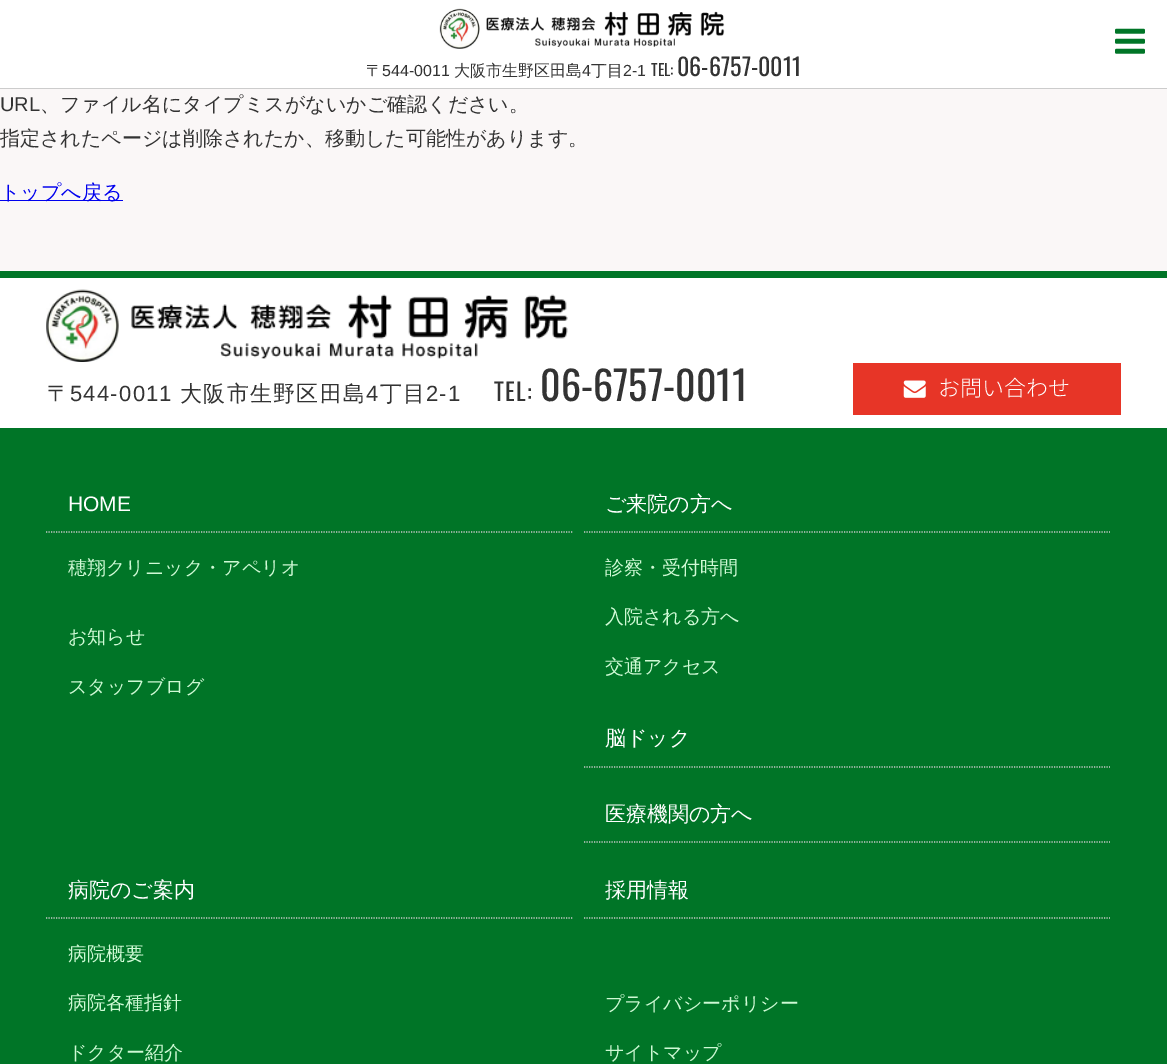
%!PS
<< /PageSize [1167 1064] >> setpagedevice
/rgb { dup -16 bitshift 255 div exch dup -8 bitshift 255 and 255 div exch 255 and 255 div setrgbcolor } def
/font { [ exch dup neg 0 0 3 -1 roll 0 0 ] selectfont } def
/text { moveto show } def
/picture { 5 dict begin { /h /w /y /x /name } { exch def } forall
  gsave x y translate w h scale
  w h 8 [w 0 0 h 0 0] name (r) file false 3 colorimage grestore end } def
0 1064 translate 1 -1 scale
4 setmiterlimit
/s1 { /WenQuanYiZenHei-Medium 16 font 16#333333 rgb } def
/s2 { /LiberationSans-Regular 16 font 16#333333 rgb } def
/s3 { /Oswald-Regular 16 font 16#333333 rgb } def
/s4 { /Oswald-Regular 24 font 16#333333 rgb } def
/s5 { /LiberationSans-Regular 20 font 16#333333 rgb } def
/s6 { /WenQuanYiZenHei-Medium 20 font 16#333333 rgb } def
/s7 { /WenQuanYiZenHei-Medium 20 font 16#0000EE rgb } def
/s8 { /Oswald-Regular 40 font 16#333333 rgb } def
/s9 { /NotoSansJP-Light 22 font 16#FFFFFF rgb } def
/s10 { /LiberationSans-Regular 21 font 16#FFFFFF rgb } def
/s11 { /WenQuanYiZenHei-Medium 19 font 16#CEF9D4 rgb } def
/s12 { /WenQuanYiZenHei-Medium 21 font 16#FFFFFF rgb } def
16#FAF7F7 rgb
0 0 1167 1064 rectfill
16#FFFFFF rgb
0 0 1167 88 rectfill
16#CCCCCC rgb
0 88 1167 1 rectfill
(pic1.raw) 1115 28 30 26 picture
(pic2.raw) 439 8 286 41 picture
s1
(〒) 366 76 text
s2
(544-0011) 382 76 text
s1
(大阪市生野区田島) 454 76 text
s2
(4) 582 76 text
s1
(丁目) 591 76 text
s2
(2-1) 623 76 text
s3
(TEL:) 651 76 text
s4
(06-6757-0011) 677 76 text
s5
(URL) 0 111 text
s6
(、ファイル名にタイプミスがないかご確認ください。) 40 111 text
(指定されたページは削除されたか、移動した可能性があります。) 0 145 text
16#0000EE rgb
0 200 123 1 rectfill
(トップへ戻る) 0 199 text
16#007527 rgb
0 271 1167 793 rectfill
16#FFFFFF rgb
0 278 1167 150 rectfill
(pic3.raw) 46 289 522 73 picture
/WenQuanYiZenHei-Medium 22 font
16#333333 rgb
47 401 moveto 1.25 0 (〒) ashow
/LiberationSans-Regular 22 font
70 401 moveto 1.25 0 (544-0011) ashow
/WenQuanYiZenHei-Medium 22 font
180 401 moveto 1.25 0 (大阪市生野区田島) ashow
/LiberationSans-Regular 22 font
366 401 moveto 1.25 0 (4) ashow
/WenQuanYiZenHei-Medium 22 font
380 401 moveto 1.25 0 (丁目) ashow
/LiberationSans-Regular 22 font
426 401 moveto 1.25 0 (2-1) ashow
/Oswald-Regular 24 font
494 401 moveto 1.25 0 (TEL:) ashow
s8
(06-6757-0011) 540 401 text
16#E73527 rgb
853 363 268 52 rectfill
(pic4.raw) 903 380 23 18 picture
s9
(お問い合わせ) 938 396 text
16#CCCCCC rgb
1.2 setlinewidth
[1.25 1.25] 0 setdash
46 532 moveto 572.5 532 lineto stroke
s10
(HOME) 68 511 text
s11
(穂翔クリニック・アペリオ) 68 574 text
(お知らせ) 68 643 text
(スタッフブログ) 68 693 text
16#CCCCCC rgb
584 532 moveto 1110 532 lineto stroke
s12
(ご来院の方へ) 605 511 text
s11
(診察・受付時間) 605 574 text
(入院される方へ) 605 623 text
(交通アクセス) 605 673 text
16#CCCCCC rgb
584 767 moveto 1110 767 lineto stroke
s12
(脳ドック) 605 745 text
16#CCCCCC rgb
584 842 moveto 1110 842 lineto stroke
s12
(医療機関の方へ) 605 821 text
16#CCCCCC rgb
46 918 moveto 572.5 918 lineto stroke
s12
(病院のご案内) 68 897 text
s11
(病院概要) 68 960 text
(病院各種指針) 68 1009 text
(ドクター紹介) 68 1059 text
16#CCCCCC rgb
584 918 moveto 1110 918 lineto stroke
s12
(採用情報) 605 897 text
s11
(プライバシーポリシー) 605 1010 text
(サイトマップ) 605 1059 text
showpage
